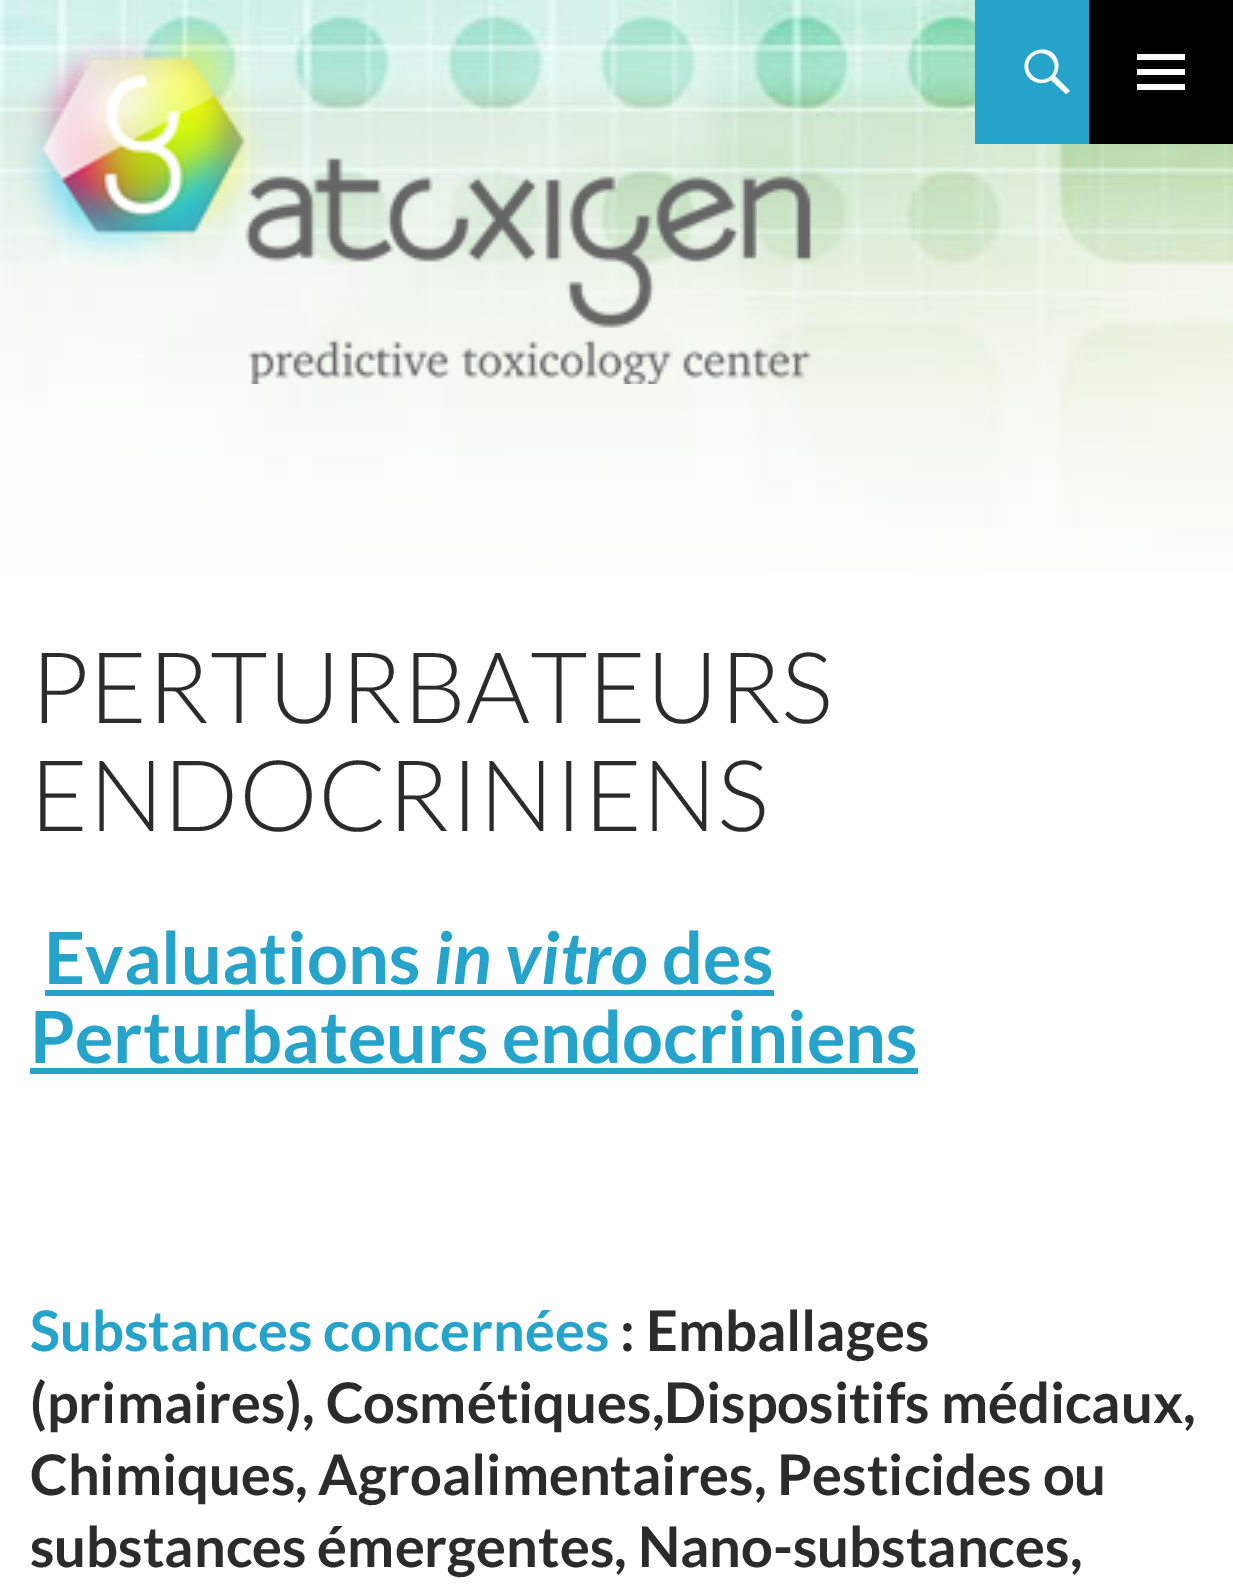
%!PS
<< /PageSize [1233 1592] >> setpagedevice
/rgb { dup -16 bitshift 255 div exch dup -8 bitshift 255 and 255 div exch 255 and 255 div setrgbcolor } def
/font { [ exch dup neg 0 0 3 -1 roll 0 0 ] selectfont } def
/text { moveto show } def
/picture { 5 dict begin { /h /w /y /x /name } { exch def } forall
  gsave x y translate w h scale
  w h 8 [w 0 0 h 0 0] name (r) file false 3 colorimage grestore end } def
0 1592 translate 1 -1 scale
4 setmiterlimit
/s1 { /Lato-Light 99 font 16#2B2B2B rgb } def
/s2 { /Lato-Bold 72 font 16#25A3CB rgb } def
/s3 { /Lato-BoldItalic 72 font 16#25A3CB rgb } def
/s4 { /Lato-Bold 56 font 16#25A3CB rgb } def
/s5 { /Lato-Bold 56 font 16#2B2B2B rgb } def
16#FFFFFF rgb
0 0 1233 1592 rectfill
(pic1.raw) 0 0 1233 570 picture
(pic2.raw) 21 18 790 366 picture
16#25A3CB rgb
975 0 114 144 rectfill
16#FFFFFF rgb
1026 73 moveto 1017 51 1052 39 1058 62 curveto 1059 67 1058 72 1055 76 curveto 1070 91 lineto 1066 94 lineto 1051 80 lineto 1043 86 1030 83 1026 73 curveto closepath 1032 57 moveto 1020 69 1038 88 1051 76 curveto 1063 63 1044 45 1032 57 curveto closepath fill
16#000000 rgb
1089 0 144 144 rectfill
16#FFFFFF rgb
1137 90 moveto 1137 84 lineto 1185 84 lineto 1185 90 lineto closepath 1137 75 moveto 1137 69 lineto 1185 69 lineto 1185 75 lineto closepath 1137 60 moveto 1137 54 lineto 1185 54 lineto 1185 60 lineto closepath fill
s1
(PERTURBATEURS) 30 723 text
(ENDOCRINIENS) 30 831 text
s2
(Evaluations) 44 984 text
45 990 729 6 rectfill
s3
(in vitro) 434 984 text
s2
(des) 662 984 text
(Perturbateurs endocriniens) 30 1063 text
30 1068 888 6 rectfill
s4
(Substances concernées) 30 1351 text
s5
(: Emballages) 620 1351 text
(\(primaires\), Cosmétiques,Dispositifs médicaux,) 30 1423 text
(Chimiques, Agroalimentaires, Pesticides ou) 30 1495 text
(substances émergentes, Nano-substances,) 30 1567 text
showpage
